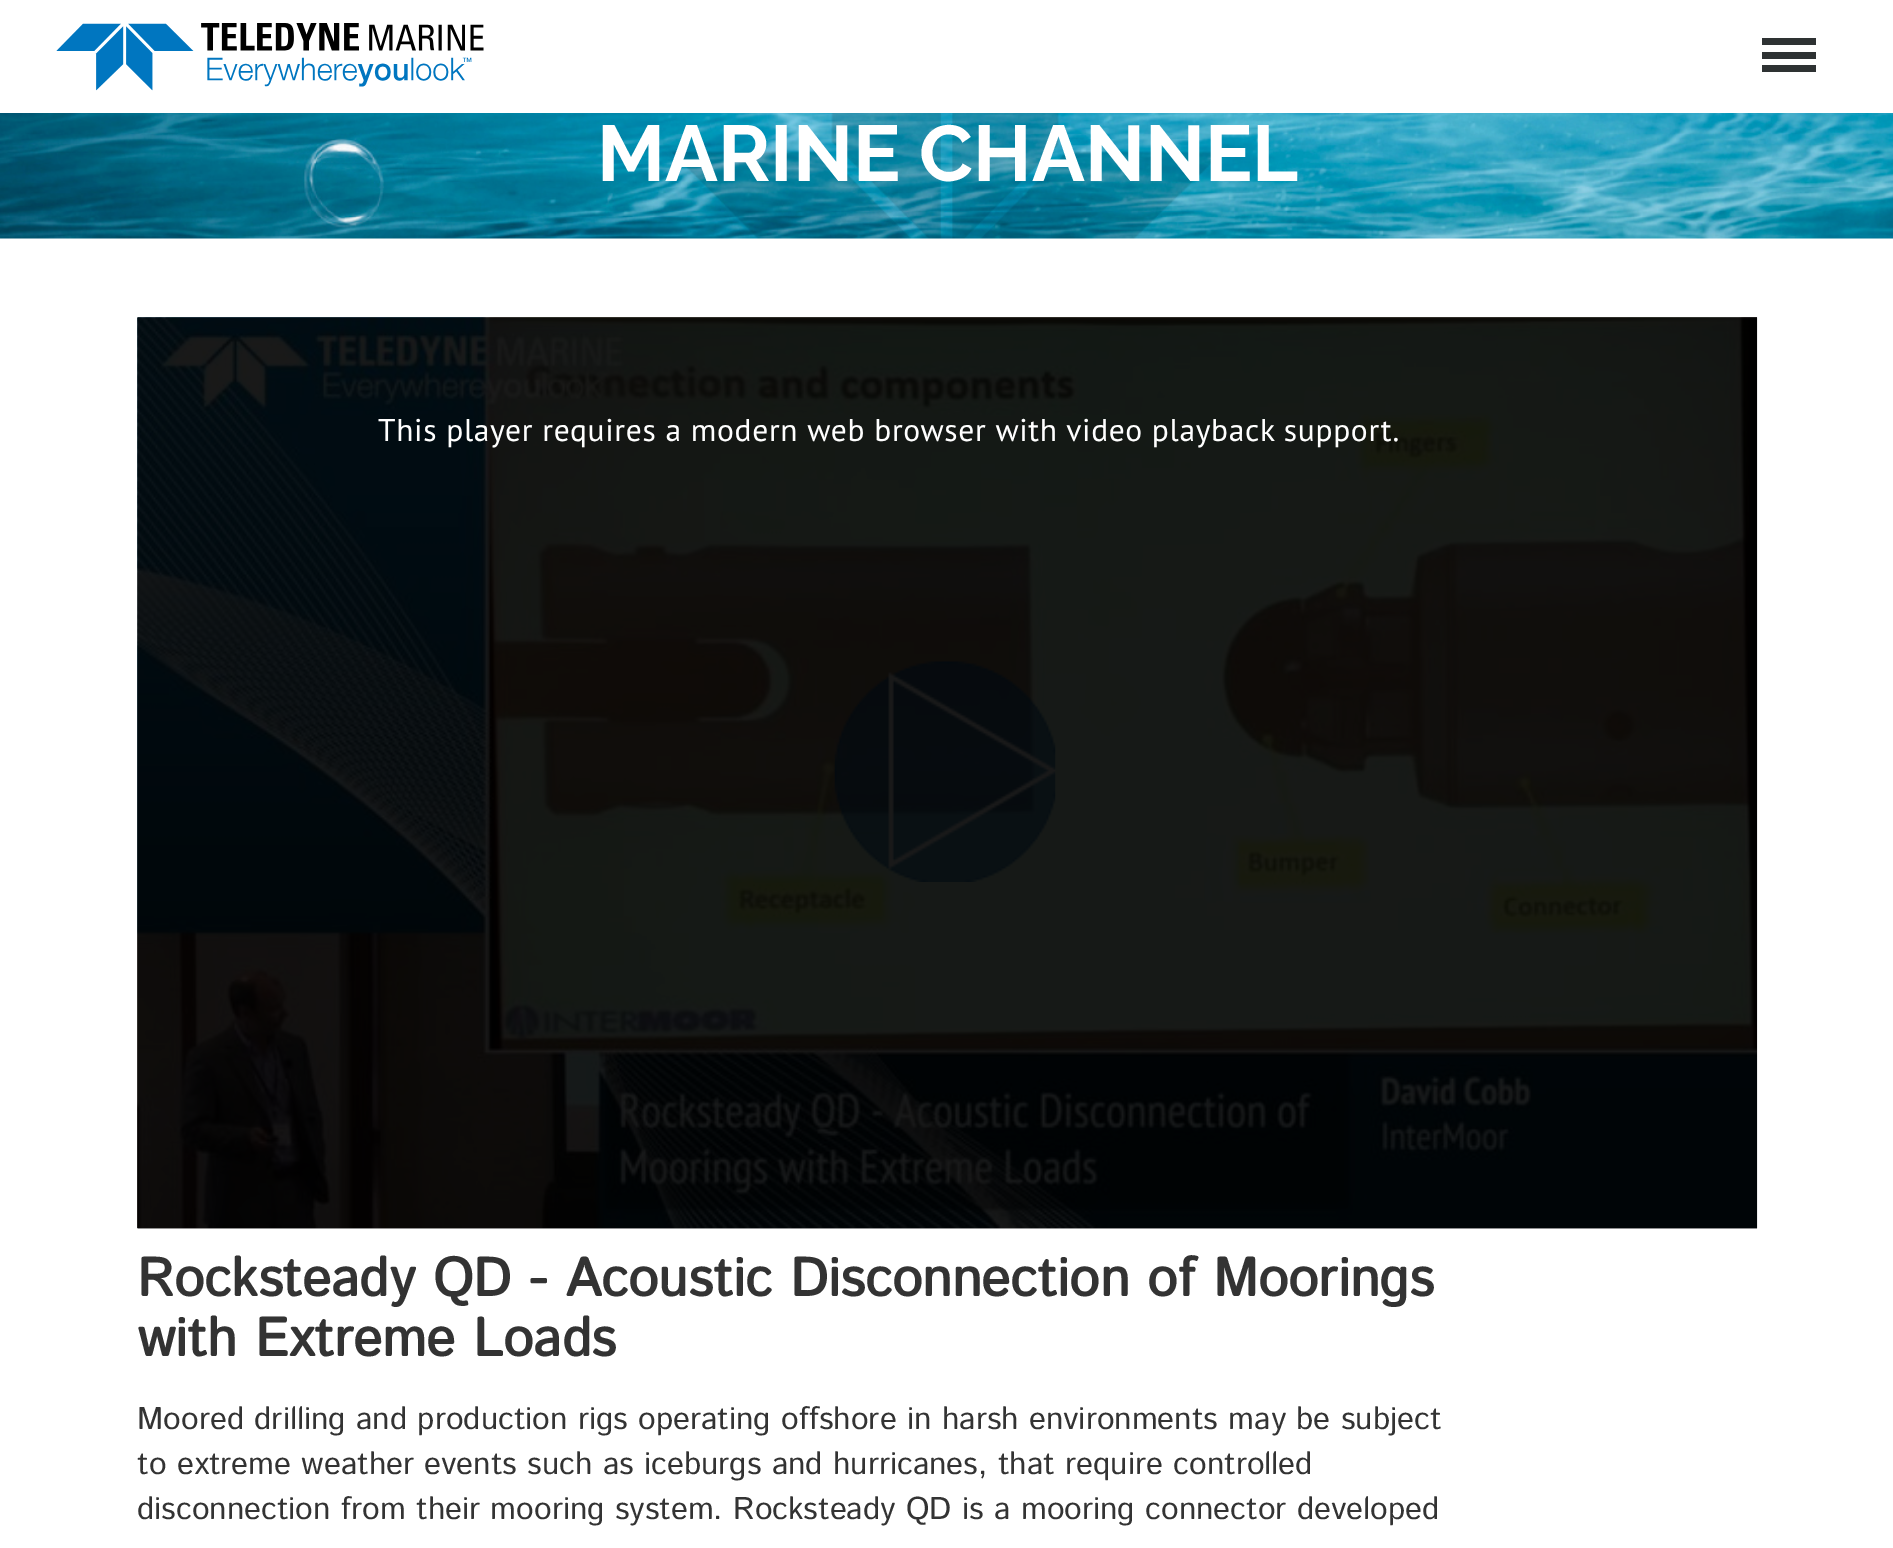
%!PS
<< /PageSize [1893 1548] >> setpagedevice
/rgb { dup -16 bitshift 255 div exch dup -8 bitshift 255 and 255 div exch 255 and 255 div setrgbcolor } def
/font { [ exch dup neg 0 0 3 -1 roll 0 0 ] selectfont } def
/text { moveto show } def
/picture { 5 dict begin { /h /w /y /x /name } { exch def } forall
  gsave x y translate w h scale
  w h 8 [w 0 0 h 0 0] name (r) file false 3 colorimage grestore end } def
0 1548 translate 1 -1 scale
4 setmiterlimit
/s1 { /Raleway-Bold 78.75 font 16#FFFFFF rgb } def
/s2 { /IstokWeb-Bold 54 font 16#333333 rgb } def
/s3 { /IstokWeb-Regular 31.5 font 16#333333 rgb } def
16#FFFFFF rgb
0 0 1893 1548 rectfill
(pic1.raw) 56 23 428 68 picture
16#2E3233 rgb
1762 52 54 7 rectfill
1762 38 54 7 rectfill
1762 65 54 7 rectfill
(pic2.raw) 0 113 1893 126 picture
s1
(MARINE CHANNEL) 597 181 text
(pic3.raw) 137 317 1621 912 picture
s2
(Rocksteady QD - Acoustic Disconnection of Moorings) 137 1296 text
(with Extreme Loads) 137 1356 text
s3
(Moored drilling and production rigs operating offshore in harsh environments may be subject) 137 1429 text
(to extreme weather events such as iceburgs and hurricanes, that require controlled) 137 1474 text
(disconnection from their mooring system. Rocksteady QD is a mooring connector developed) 137 1519 text
showpage
